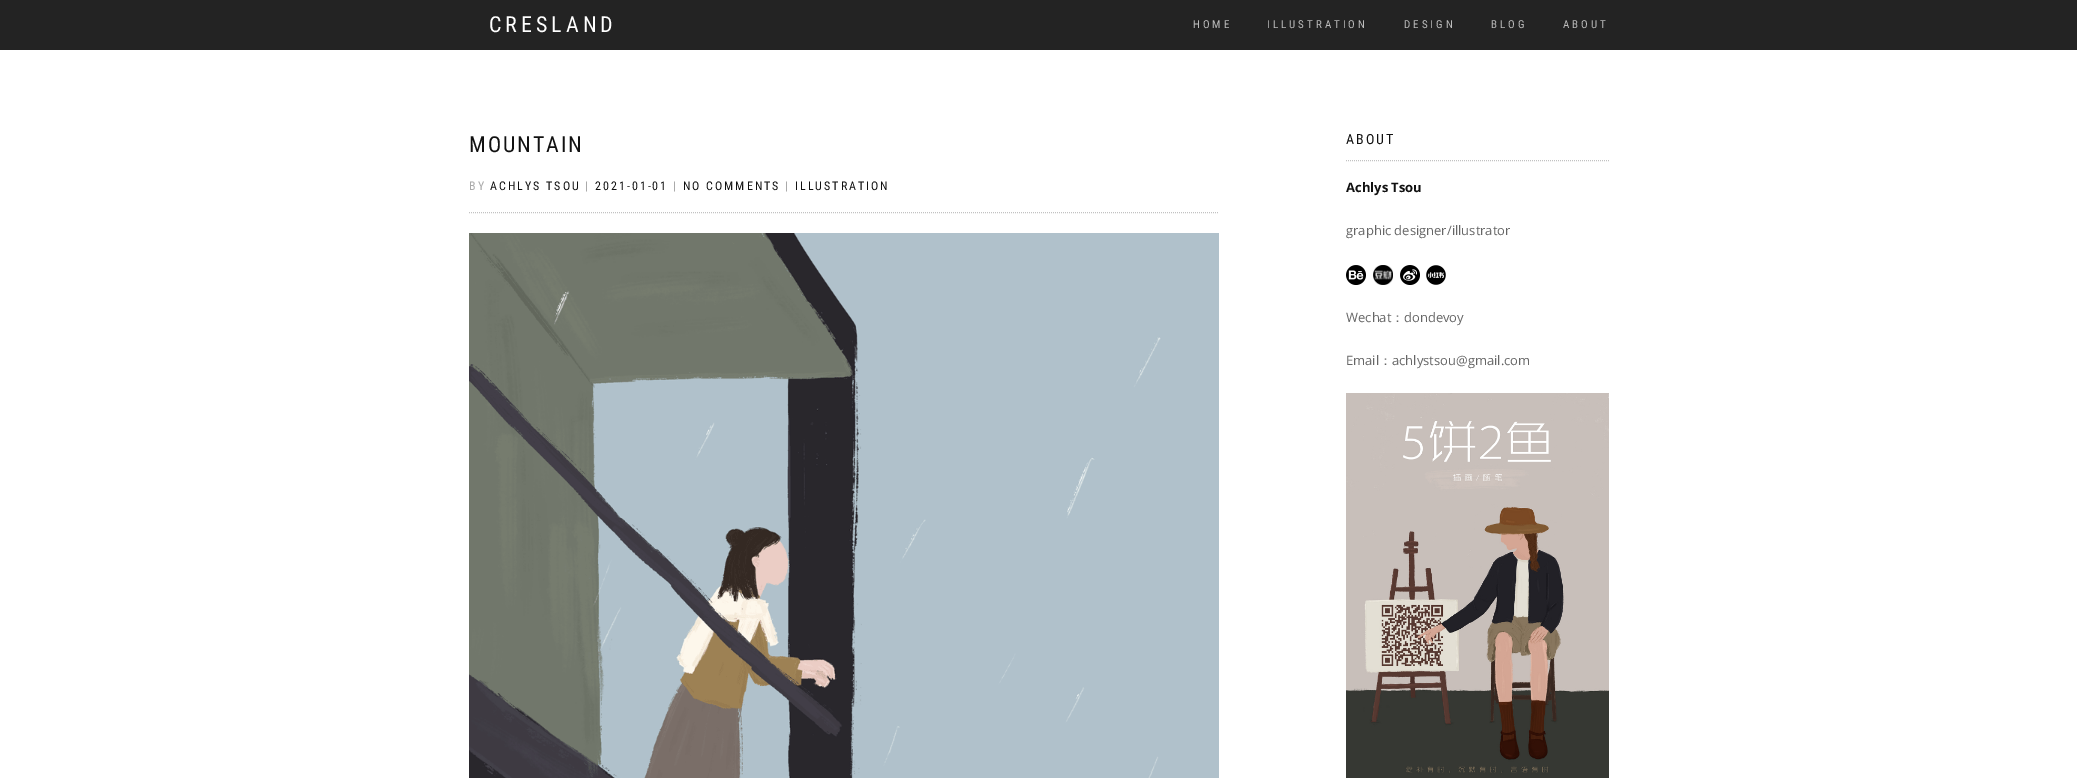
%!PS
<< /PageSize [2077 778] >> setpagedevice
/rgb { dup -16 bitshift 255 div exch dup -8 bitshift 255 and 255 div exch 255 and 255 div setrgbcolor } def
/font { [ exch dup neg 0 0 3 -1 roll 0 0 ] selectfont } def
/text { moveto show } def
/picture { 5 dict begin { /h /w /y /x /name } { exch def } forall
  gsave x y translate w h scale
  w h 8 [w 0 0 h 0 0] name (r) file false 3 colorimage grestore end } def
0 778 translate 1 -1 scale
4 setmiterlimit
/s1 { /OpenSans-Bold 13 font 16#111111 rgb } def
/s2 { /OpenSans-Regular 13 font 16#666666 rgb } def
/s3 { /WenQuanYiZenHei-Medium 13 font 16#666666 rgb } def
16#FFFFFF rgb
0 0 2077 778 rectfill
16#232323 rgb
0 0 2077 50 rectfill
/RobotoCondensed-Regular 22 font
16#FFFFFF rgb
489 32 moveto 4 0 (CRESLAND) ashow
/RobotoCondensed-Regular 11 font
16#BDBDBD rgb
1193 28 moveto 3 0 (HOME) ashow
1267 28 moveto 3 0 (ILLUSTRATION) ashow
1404 28 moveto 3 0 (DESIGN) ashow
1491 28 moveto 3 0 (BLOG) ashow
1563 28 moveto 3 0 (ABOUT) ashow
/RobotoCondensed-Regular 22 font
16#111111 rgb
469 152 moveto 2 0 (MOUNTAIN) ashow
/RobotoCondensed-Regular 12 font
16#AAAAAA rgb
469 190 moveto 2 0 (BY) ashow
16#111111 rgb
490 190 moveto 2 0 (ACHLYS TSOU) ashow
16#AAAAAA rgb
585 190 moveto 2 0 (|) ashow
16#111111 rgb
595 190 moveto 2 0 (2021-01-01) ashow
16#AAAAAA rgb
673 190 moveto 2 0 (|) ashow
16#111111 rgb
683 190 moveto 2 0 (NO COMMENTS) ashow
16#AAAAAA rgb
785 190 moveto 2 0 (|) ashow
16#111111 rgb
795 190 moveto 2 0 (ILLUSTRATION) ashow
16#C2C2C2 rgb
[1 1] 0 setdash
469 212.5 moveto 1219 212.5 lineto stroke
(pic1.raw) 469 233 750 545 picture
1346 160.5 moveto 1609 160.5 lineto stroke
/RobotoCondensed-Regular 14 font
16#111111 rgb
1346 144 moveto 2 0 (ABOUT) ashow
s1
(Achlys Tsou) 1346 192 text
s2
(graphic designer/illustrator) 1346 235 text
(pic2.raw) 1346 265 20 20 picture
(pic3.raw) 1373 265 20 20 picture
(pic4.raw) 1400 265 20 20 picture
(pic5.raw) 1426 265 20 20 picture
(Wechat) 1346 322 text
s3
(：) 1391 322 text
s2
(dondevoy) 1404 322 text
(Email) 1346 365 text
s3
(：) 1379 365 text
s2
(achlystsou@gmail.com) 1392 365 text
(pic6.raw) 1346 393 263 385 picture
showpage
